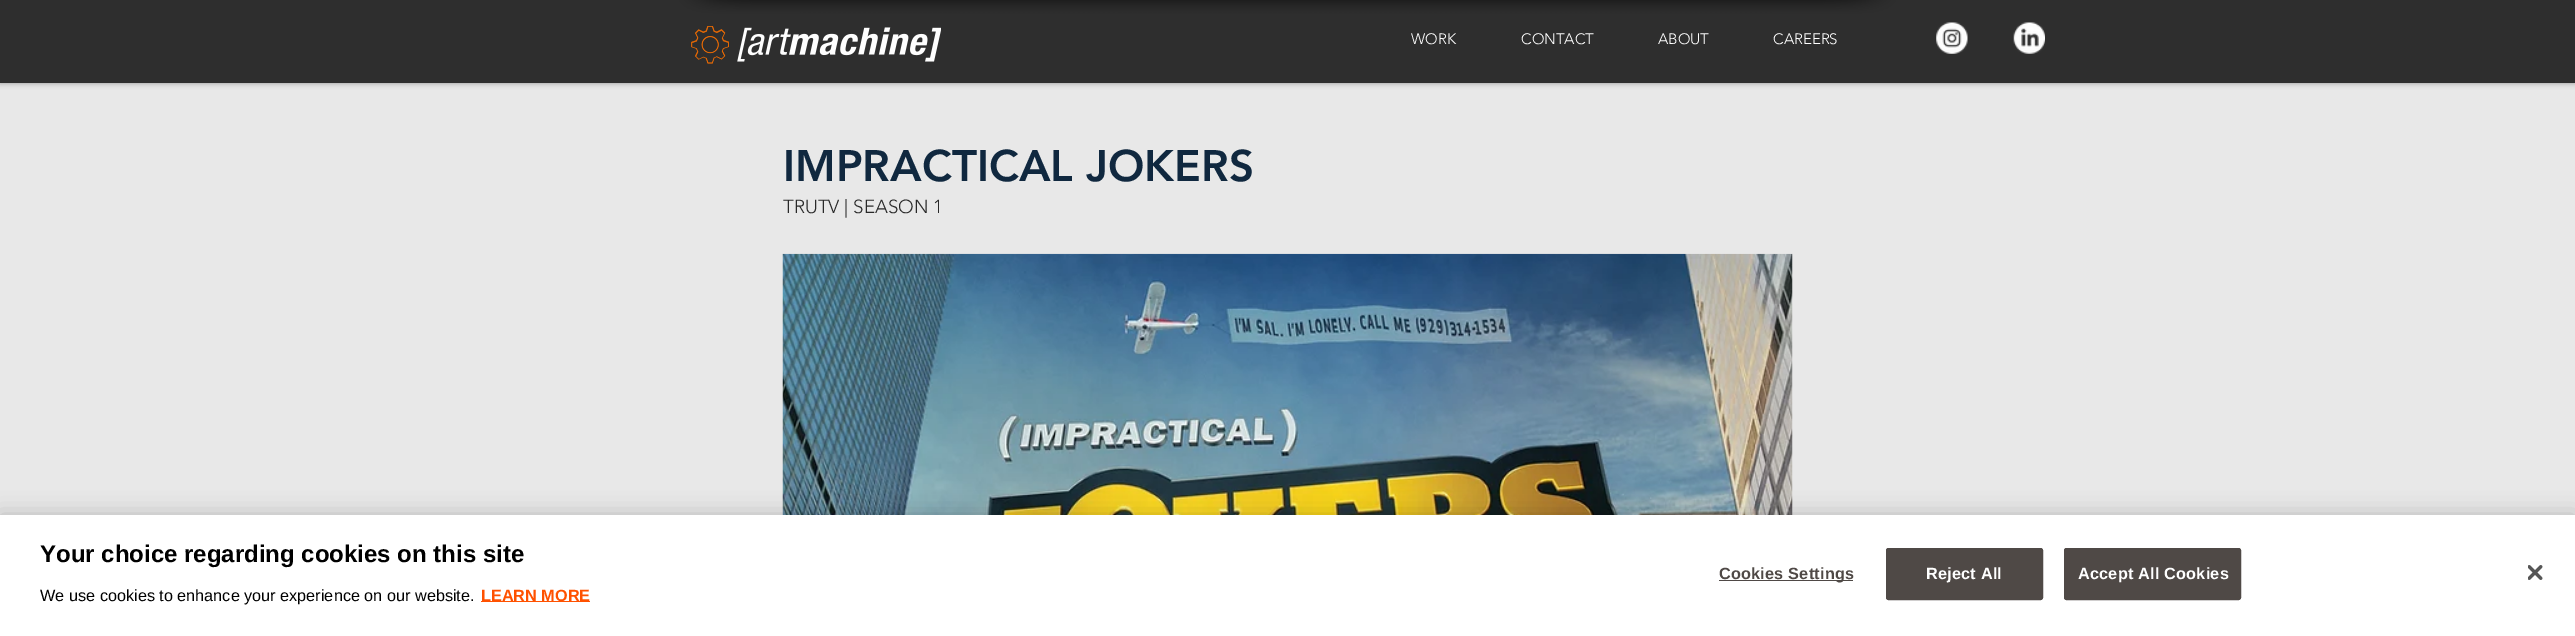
%!PS
<< /PageSize [2575 636] /PageUsesTransparency true >> setpagedevice
/rgb { dup -16 bitshift 255 div exch dup -8 bitshift 255 and 255 div exch 255 and 255 div setrgbcolor } def
/font { [ exch dup neg 0 0 3 -1 roll 0 0 ] selectfont } def
/text { moveto show } def
/alpha { dup .setfillconstantalpha .setstrokeconstantalpha } def
/roundrect { 5 dict begin { /r /h /w /y /x } { exch def } forall
  x r add y moveto x w add y 2 copy h add r arct x w add y h add x 1 index r arct
  x y h add x y r arct x y 2 copy exch w add exch r arct closepath end } def
/shadow { 12 dict begin { /a /b /q /h /w /y /x } { exch def } forall gsave /was 0 def
  9 -2 -9 { dup b mul 4 div /e exch def 1 sub .425 mul 2.718 exch exp 1 add a .99 .min exch div /now exch def
    1 1 now sub 1 was sub div sub alpha /was now def
    w h .min e 2 mul add 0 gt { x e sub y e sub w e 2 mul add h e 2 mul add
      q e add b .6 mul add w h .min 2 div e add .min 0 .max roundrect fill } if } for grestore end } def
/picture { 5 dict begin { /h /w /y /x /name } { exch def } forall
  gsave x y translate w h scale
  w h 8 [w 0 0 h 0 0] name (r) file false 3 colorimage grestore end } def
0 .pushpdf14devicefilter
0 636 translate 1 -1 scale
4 setmiterlimit
/s1 { /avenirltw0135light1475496-Light 15 font 16#FFFFFF rgb } def
/s2 { /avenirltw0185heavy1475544-Black 43.75 font 16#10283F rgb } def
/s3 { /avenirltw0135light1475496-Light 18.75 font 16#292929 rgb } def
/s4 { /LiberationSans-Bold 24 font 16#000000 rgb } def
/s5 { /LiberationSans-Regular 16.25 font 16#000000 rgb } def
/s6 { /LiberationSans-Bold 16.25 font 16#FF5100 rgb } def
16#E8E8E8 rgb
0 0 2575 636 rectfill
(pic1.raw) 679 0 121 14 picture
(pic2.raw) 800 0 975 14 picture
(pic3.raw) 1775 0 121 14 picture
gsave
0 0 moveto 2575 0 lineto 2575 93 lineto 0 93 lineto closepath 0 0 moveto 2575 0 lineto 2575 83 lineto 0 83 lineto closepath eoclip newpath
16#666666 rgb
0 0 2575 83 0 3 0.7 shadow
grestore
0.8 alpha
16#000000 rgb
0 0 2575 83 rectfill
1 alpha
(pic4.raw) 691 26 250 38 picture
s1
(WORK) 1411 44 text
(CONTACT) 1521 44 text
(ABOUT) 1658 44 text
(CAREERS) 1773 44 text
(pic5.raw) 1936 22 32 32 picture
(pic6.raw) 2013 22 32 32 picture
s2
(IMPRACTICAL JOKERS) 783 181 text
s3
(TRUTV | SEASON 1) 783 213 text
(pic7.raw) 782 253 1011 262 picture
16#000000 rgb
0 515 2575 121 0 11 0.2 shadow
16#FFFFFF rgb
0 515 2575 121 rectfill
s4
(Your choice regarding cookies on this site) 40 562 text
s5
(We use cookies to enhance your experience on our website.) 40 601 text
16#FF5100 rgb
481 601 109 1 rectfill
s6
(LEARN MORE) 481 601 text
16#4F4946 rgb
1719 580 134 1 rectfill
1719 579 moveto 0.2 0 (Cookies Settings) ashow
1886.5 548.5 156 51 2 roundrect gsave fill grestore
stroke
16#FFFFFF rgb
1926 579 moveto 0.2 0 (Reject All) ashow
16#4F4946 rgb
2064.5 548.5 176 51 2 roundrect gsave fill grestore
stroke
16#FFFFFF rgb
2078 579 moveto 0.2 0 (Accept All Cookies) ashow
(pic8.raw) 2528 565 15 15 picture
.poppdf14devicefilter showpage
